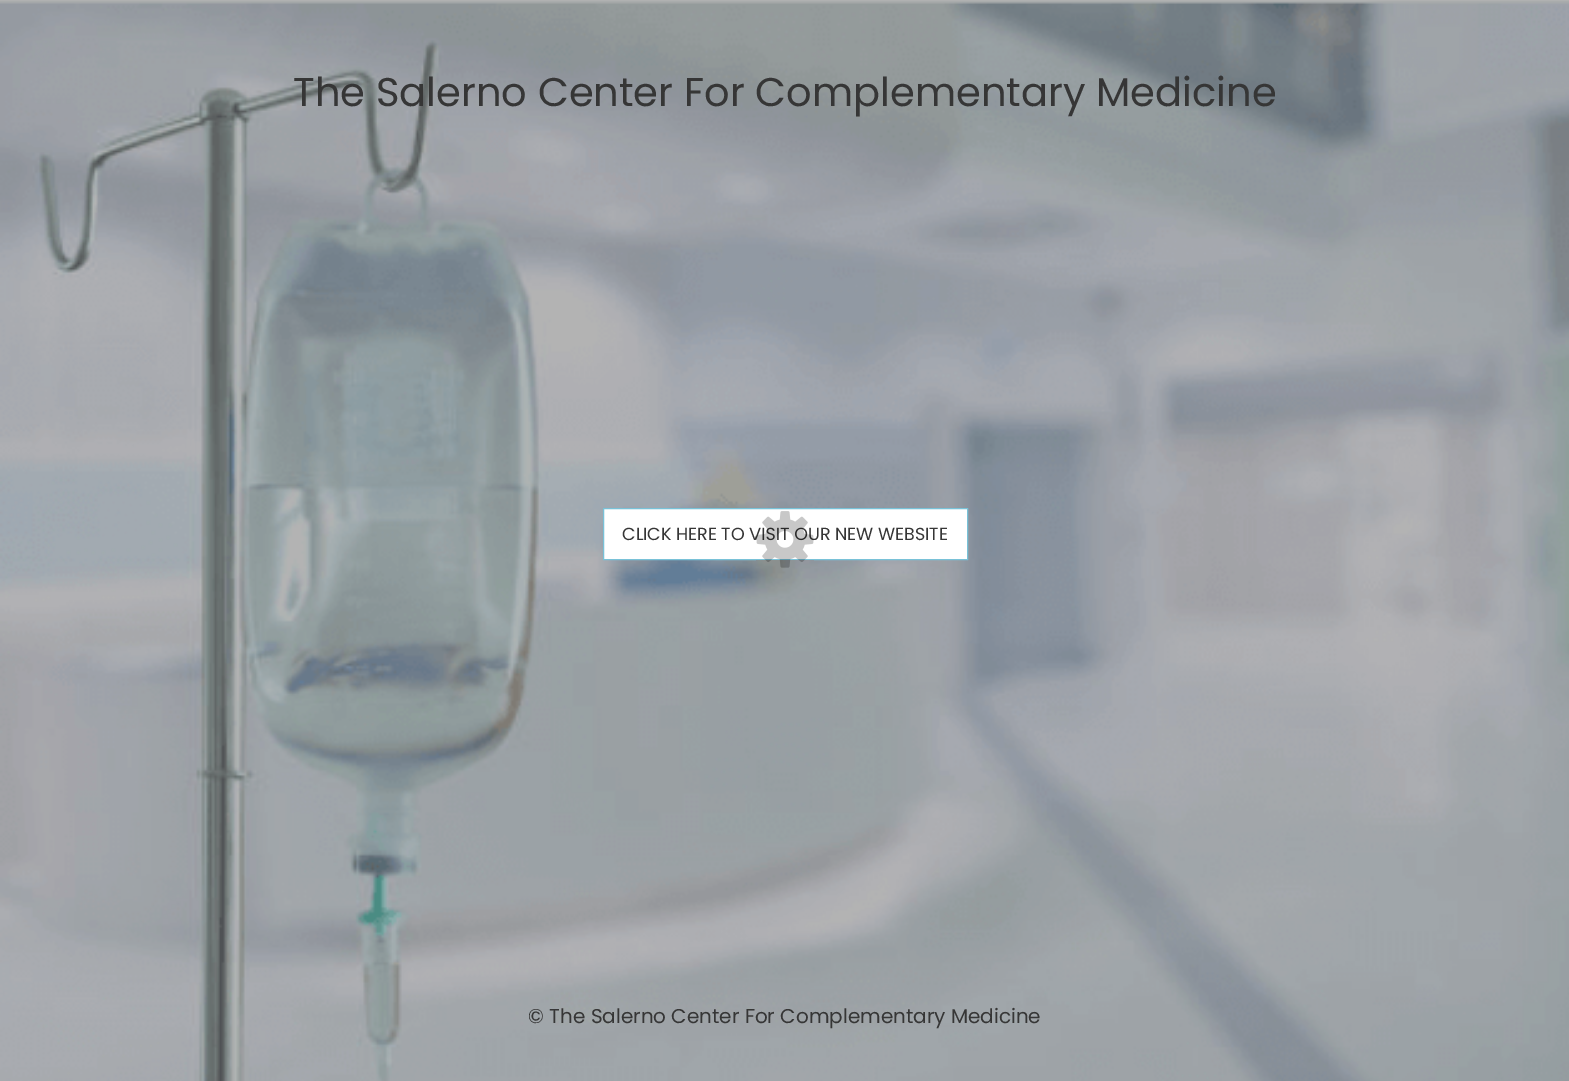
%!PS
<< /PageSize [1569 1081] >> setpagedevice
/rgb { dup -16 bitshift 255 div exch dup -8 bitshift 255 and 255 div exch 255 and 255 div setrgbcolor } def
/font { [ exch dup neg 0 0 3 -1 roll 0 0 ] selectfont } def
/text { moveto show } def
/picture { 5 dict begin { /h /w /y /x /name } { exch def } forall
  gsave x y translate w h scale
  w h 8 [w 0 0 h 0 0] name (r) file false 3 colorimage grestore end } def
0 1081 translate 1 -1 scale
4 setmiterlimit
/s1 { /Poppins-Regular 40 font 16#363636 rgb } def
/s2 { /Poppins-Regular 17.5 font 16#363636 rgb } def
/s3 { /Poppins-Regular 20 font 16#363636 rgb } def
16#B4B4B4 rgb
0 0 1569 1081 rectfill
(pic1.raw) 0 0 1569 1081 picture
s1
(The Salerno Center For Complementary Medicine) 293 106 text
16#FFFFFF rgb
603.5 508.5 moveto 967.5 508.5 lineto 967.5 559.5 lineto 603.5 559.5 lineto closepath gsave fill grestore
16#79C2D8 rgb
stroke
s2
(CLICK HERE TO VISIT OUR NEW WEBSITE) 622 540 text
(pic2.raw) 756 511 58 57 picture
s3
(© The Salerno Center For Complementary Medicine) 528 1023 text
showpage
